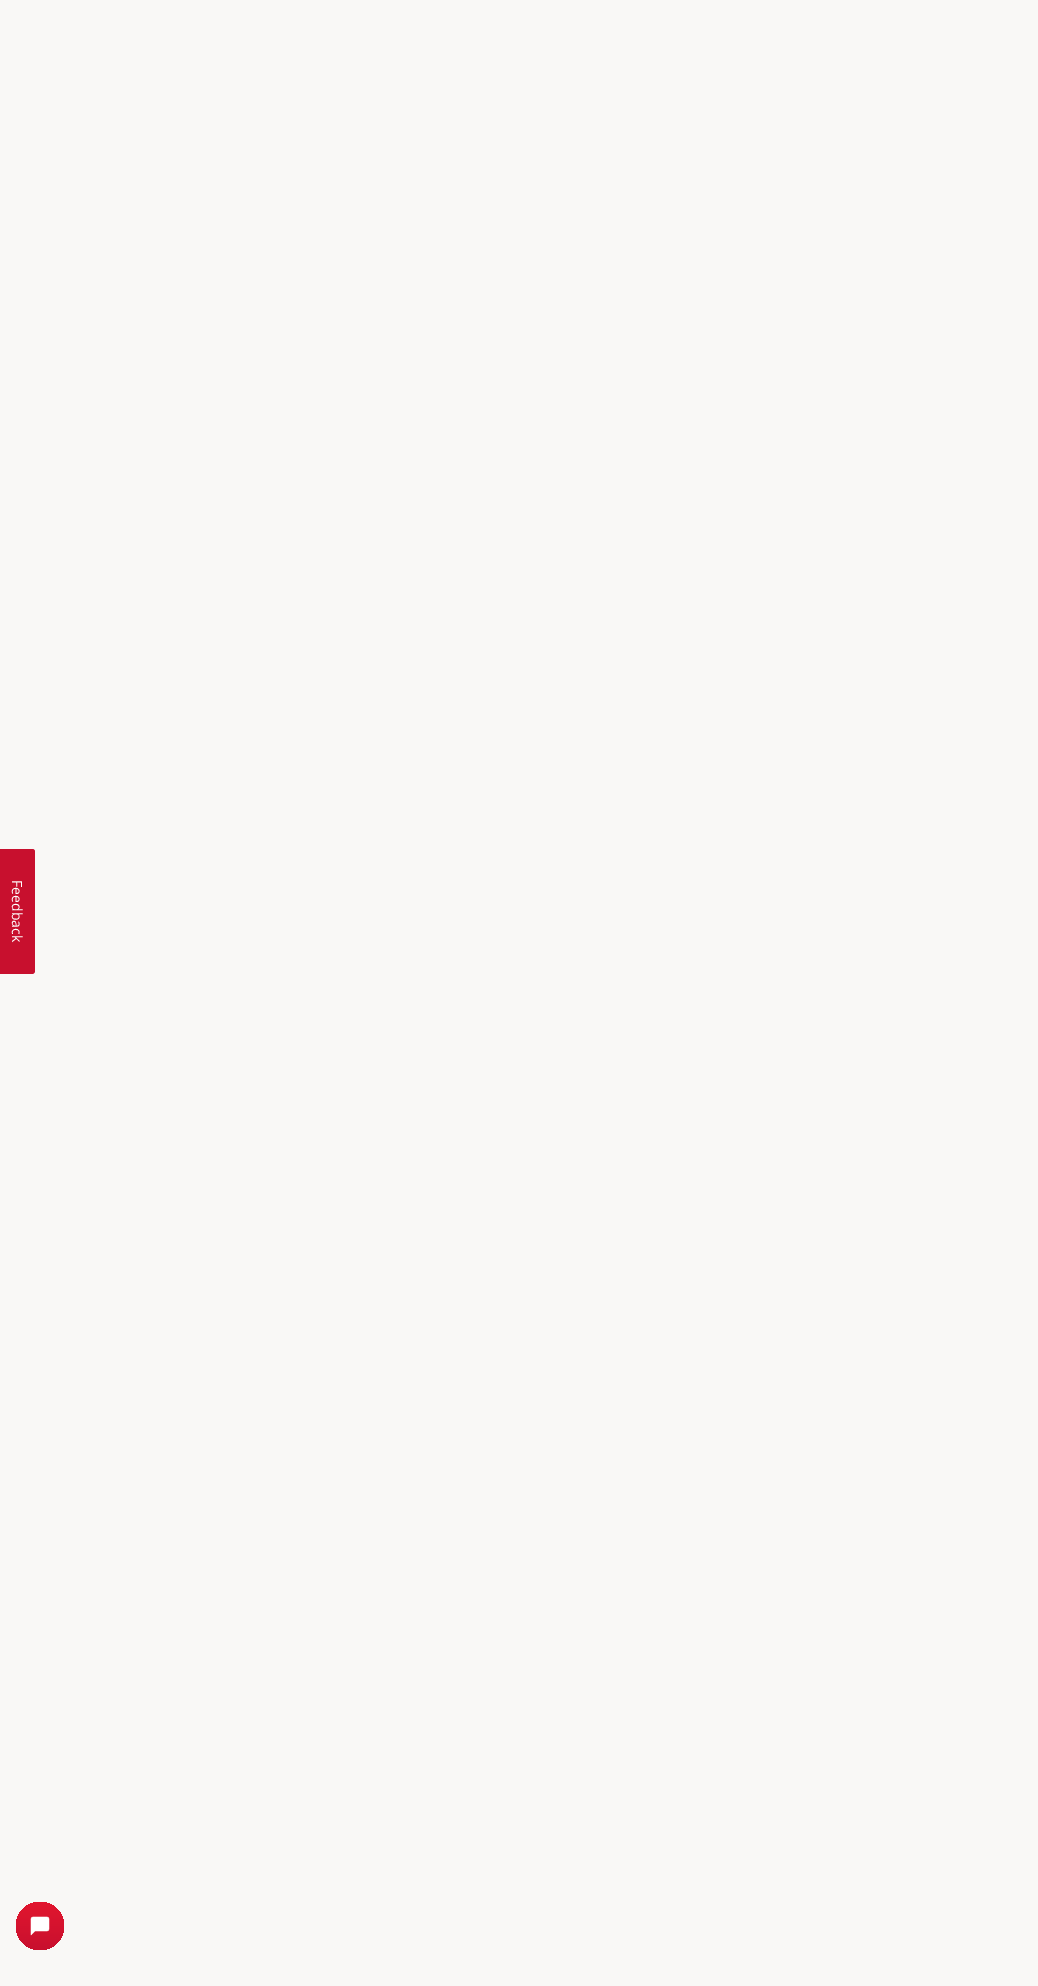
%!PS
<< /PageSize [1038 1986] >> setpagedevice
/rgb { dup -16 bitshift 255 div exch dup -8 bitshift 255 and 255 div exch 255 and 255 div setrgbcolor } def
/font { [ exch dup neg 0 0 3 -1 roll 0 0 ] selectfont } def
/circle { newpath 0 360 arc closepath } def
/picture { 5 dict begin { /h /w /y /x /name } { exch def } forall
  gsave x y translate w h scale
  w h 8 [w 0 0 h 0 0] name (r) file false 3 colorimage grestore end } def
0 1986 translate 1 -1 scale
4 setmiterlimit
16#F9F8F6 rgb
0 0 1038 1986 rectfill
16#C8102E rgb
35 852 moveto 35 971 lineto 35 972 34 974 32 974 curveto 0 974 lineto 0 849 lineto 32 849 lineto 34 849 35 850 35 852 curveto closepath fill
/OpenSans-Regular 14 font
16#FFFFFF rgb
gsave 12 880 translate 90 rotate 0 0 moveto (Feedback) show grestore
gsave 40 1926 24 circle clip newpath
<< /ShadingType 2 /ColorSpace /DeviceRGB /Coords [40 1902 40 1950] /Extend [true true] /Function << /FunctionType 2 /Domain [0 1] /C0 [0.886 0.086 0.18] /C1 [0.784 0.063 0.18] /N 1 >> >> shfill grestore
(pic1.raw) 30 1916 20 20 picture
showpage
